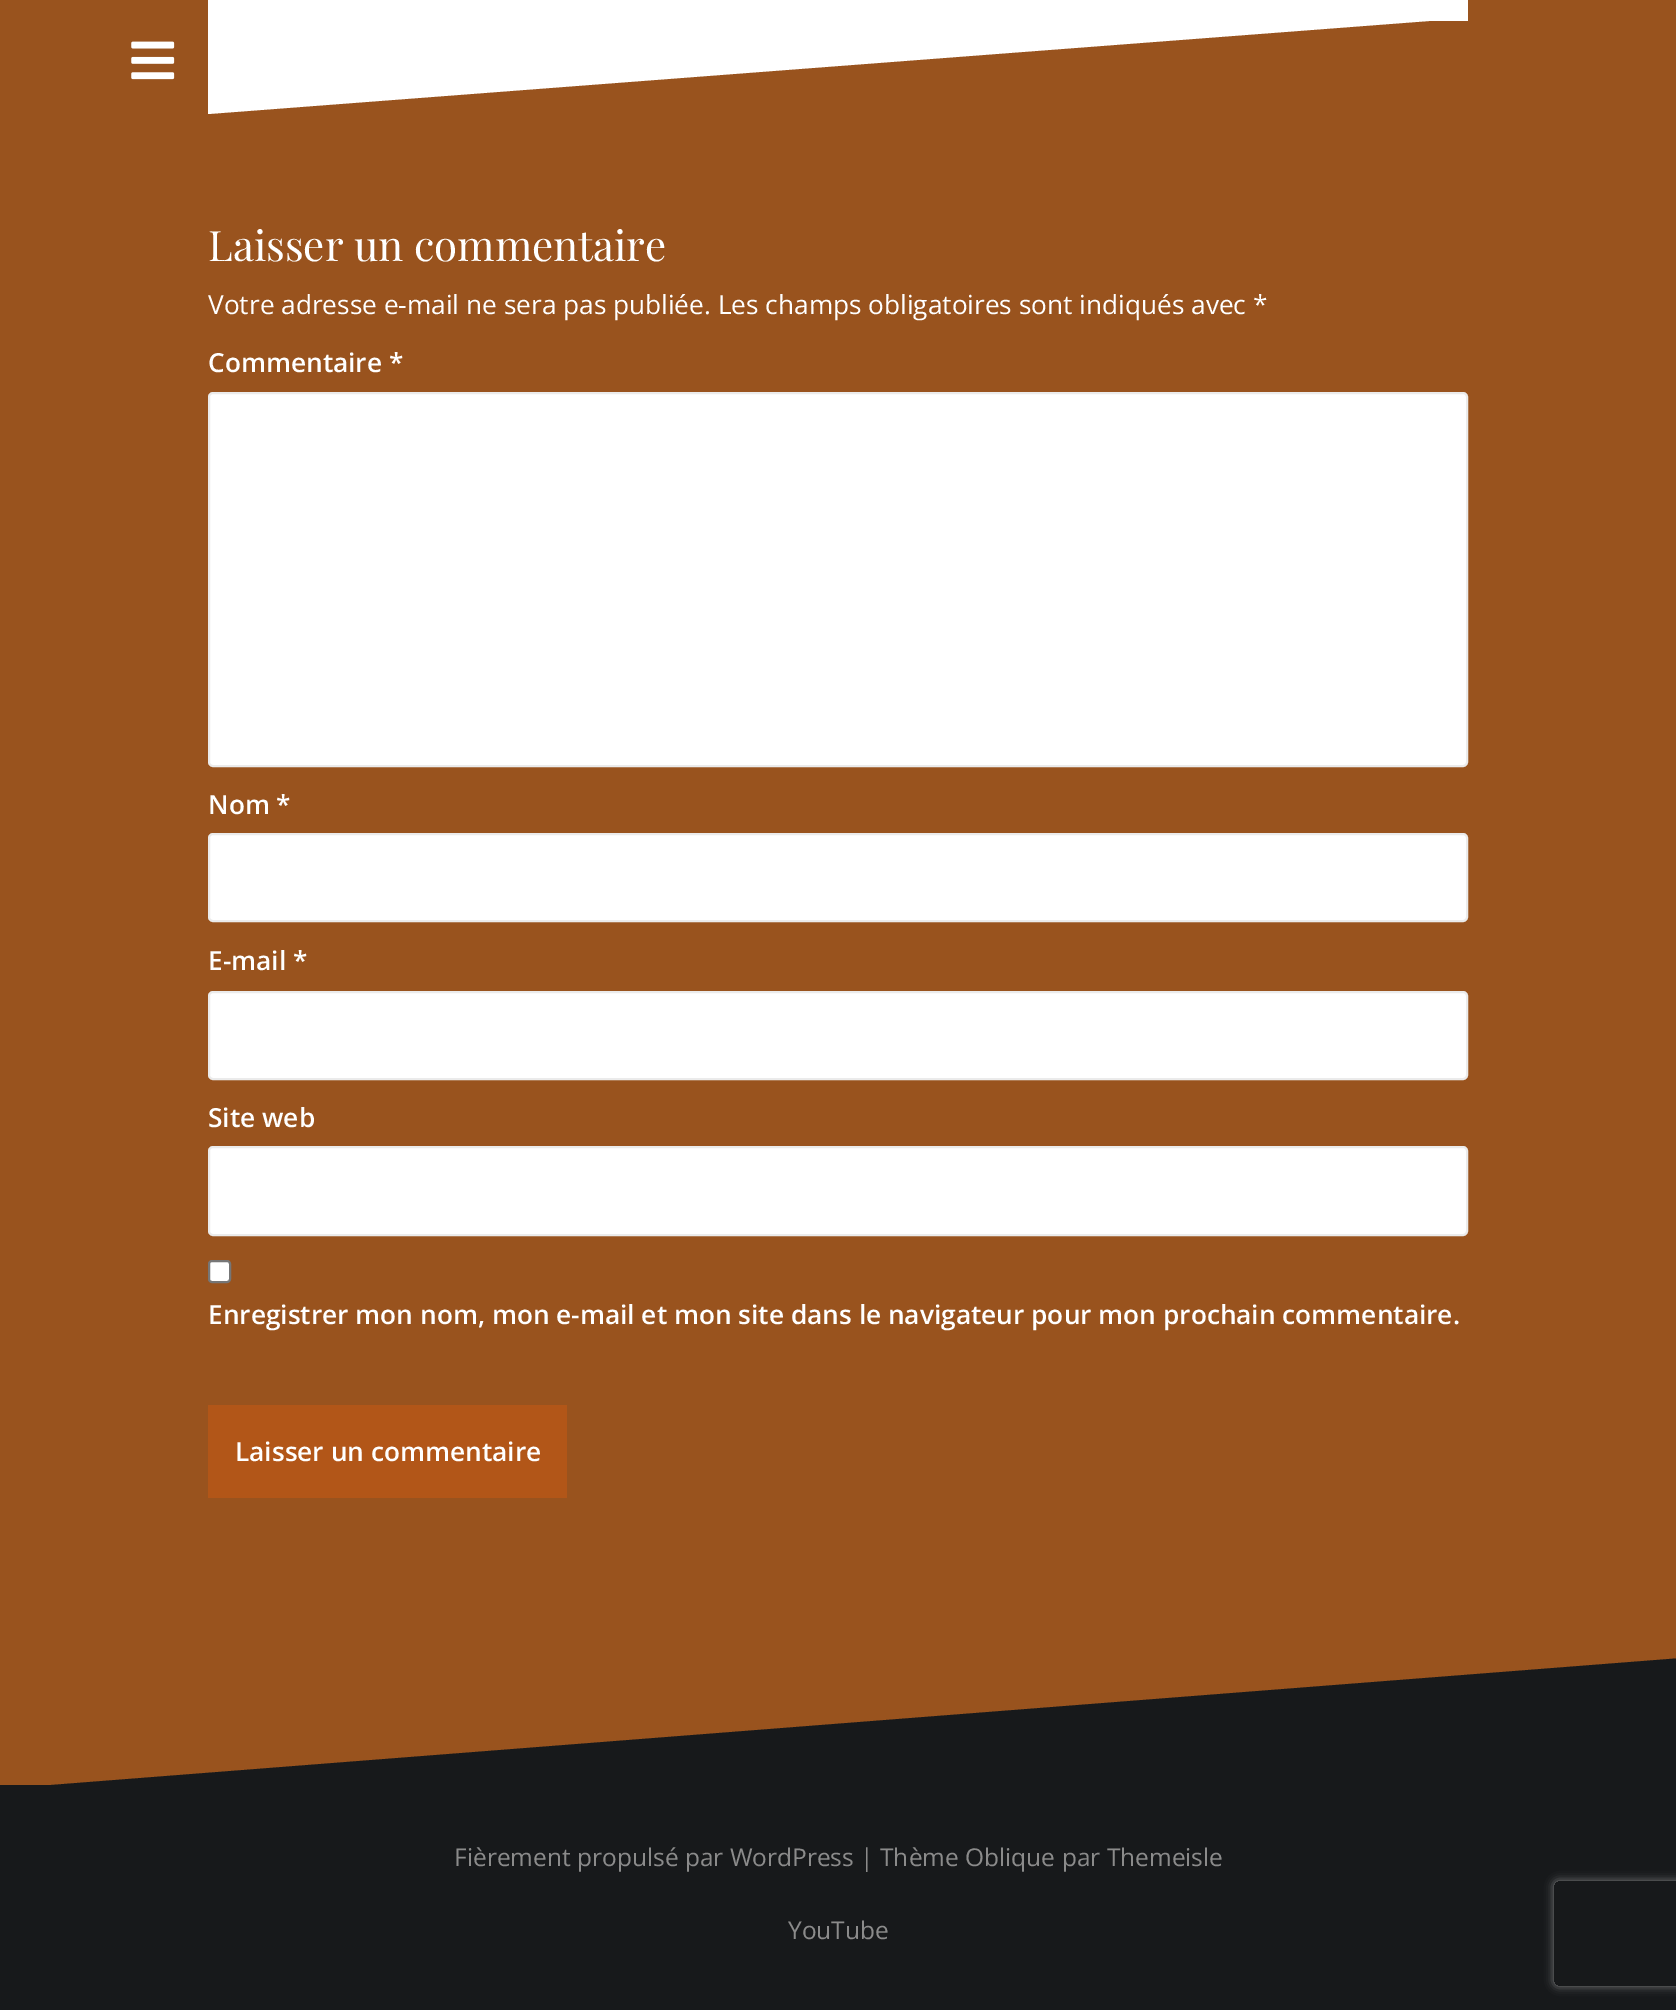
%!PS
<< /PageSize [1676 2010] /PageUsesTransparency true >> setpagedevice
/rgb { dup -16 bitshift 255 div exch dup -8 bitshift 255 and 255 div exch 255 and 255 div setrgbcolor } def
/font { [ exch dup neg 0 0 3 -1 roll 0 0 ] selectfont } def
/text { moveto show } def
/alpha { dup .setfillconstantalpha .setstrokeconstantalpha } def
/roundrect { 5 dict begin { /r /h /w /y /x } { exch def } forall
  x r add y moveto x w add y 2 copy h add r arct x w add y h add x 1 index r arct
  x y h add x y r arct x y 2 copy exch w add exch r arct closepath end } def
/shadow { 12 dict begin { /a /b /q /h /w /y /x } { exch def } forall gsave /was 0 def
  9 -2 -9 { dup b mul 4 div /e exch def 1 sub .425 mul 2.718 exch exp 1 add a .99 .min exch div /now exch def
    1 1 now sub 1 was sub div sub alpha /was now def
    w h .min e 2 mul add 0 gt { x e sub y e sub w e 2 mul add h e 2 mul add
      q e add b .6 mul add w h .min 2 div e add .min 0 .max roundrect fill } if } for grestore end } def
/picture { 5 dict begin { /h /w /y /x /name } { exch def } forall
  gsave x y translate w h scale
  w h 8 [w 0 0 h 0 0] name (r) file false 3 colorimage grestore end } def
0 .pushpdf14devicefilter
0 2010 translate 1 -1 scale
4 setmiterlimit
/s1 { /PlayfairDisplay-Regular 42 font 16#FFFFFF rgb } def
/s2 { /OpenSans-Regular 26.25 font 16#FFFFFF rgb } def
/s3 { /OpenSans-SemiBold 26.25 font 16#FFFFFF rgb } def
/s4 { /OpenSans-Regular 24.5 font 16#8B8B8B rgb } def
16#99531E rgb
0 0 1676 2010 rectfill
(pic1.raw) 131 41 44 39 picture
16#FFFFFF rgb
208 0 1260 21 rectfill
208 114 moveto 208 18 lineto 1468 18 lineto fill
s1
(Laisser un commentaire) 208 261 text
s2
(Votre adresse e-mail ne sera pas publiée. Les champs obligatoires sont indiqués avec *) 208 314 text
s3
(Commentaire *) 208 372 text
209 393 1258 373 4 roundrect gsave fill grestore
16#EBEBEB rgb
2 setlinewidth
stroke
s3
(Nom *) 208 814 text
209 834 1258 87 4 roundrect gsave fill grestore
16#EBEBEB rgb
stroke
s3
(E-mail *) 208 970 text
209 992 1258 87 4 roundrect gsave fill grestore
16#EBEBEB rgb
stroke
s3
(Site web) 208 1127 text
209 1147 1258 88 4 roundrect gsave fill grestore
16#EBEBEB rgb
stroke
16#FFFFFF rgb
209 1261 21 21 3 roundrect gsave fill grestore
16#767676 rgb
stroke
s3
(Enregistrer mon nom, mon e-mail et mon site dans le navigateur pour mon prochain commentaire.) 208 1324 text
16#B25618 rgb
208 1405 359 93 rectfill
s3
(Laisser un commentaire) 235 1461 text
16#17191B rgb
0 1785 1676 225 rectfill
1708 1656 moveto 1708 1789 lineto 0 1789 lineto fill
s4
(Fièrement propulsé par WordPress | Thème Oblique par Themeisle) 454 1866 text
(YouTube) 788 1939 text
gsave
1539 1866 moveto 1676 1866 lineto 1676 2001 lineto 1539 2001 lineto closepath 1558 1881 moveto 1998 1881 lineto 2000 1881 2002 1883 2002 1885 curveto 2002 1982 lineto 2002 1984 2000 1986 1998 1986 curveto 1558 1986 lineto 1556 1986 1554 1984 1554 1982 curveto 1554 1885 lineto 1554 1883 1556 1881 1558 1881 curveto closepath eoclip newpath
16#808080 rgb
1554 1881 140 105 4 4.5 1 shadow
grestore
.poppdf14devicefilter showpage
